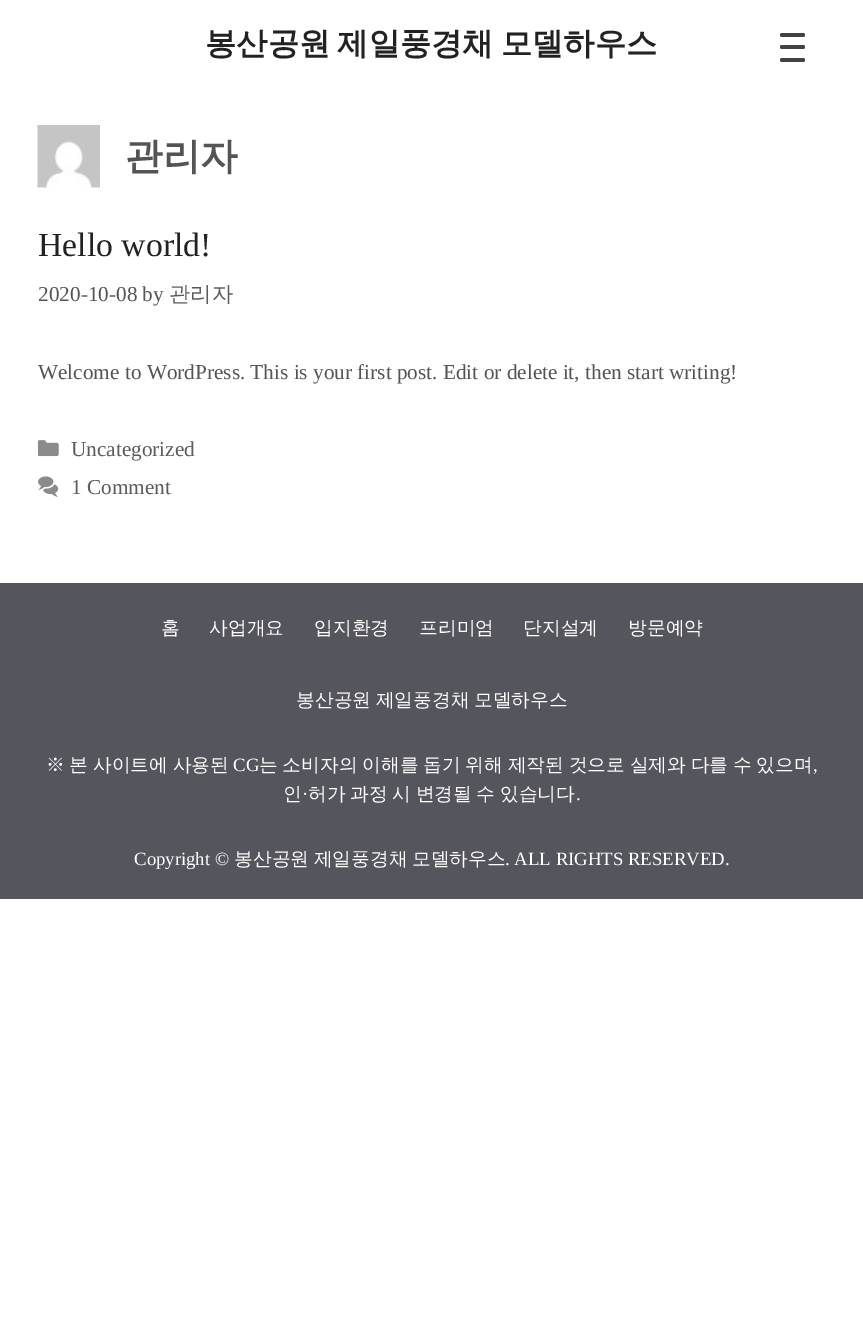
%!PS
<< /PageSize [863 1339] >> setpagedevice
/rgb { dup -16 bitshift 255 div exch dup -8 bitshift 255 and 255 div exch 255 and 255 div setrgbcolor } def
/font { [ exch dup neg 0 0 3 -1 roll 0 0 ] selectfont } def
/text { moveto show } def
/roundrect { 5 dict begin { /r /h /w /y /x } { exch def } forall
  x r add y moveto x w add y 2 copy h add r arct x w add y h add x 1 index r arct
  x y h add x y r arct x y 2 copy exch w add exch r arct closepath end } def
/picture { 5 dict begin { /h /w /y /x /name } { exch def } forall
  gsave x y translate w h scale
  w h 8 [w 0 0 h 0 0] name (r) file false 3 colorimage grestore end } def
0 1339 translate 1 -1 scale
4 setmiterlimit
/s1 { /WenQuanYiZenHei-Bold 37.5 font 16#545454 rgb } def
/s2 { /LiberationSerif-Regular 33.75 font 16#222222 rgb } def
/s3 { /LiberationSerif-Regular 21.25 font 16#545454 rgb } def
/s4 { /WenQuanYiZenHei-Medium 21.25 font 16#5B5B5B rgb } def
/s5 { /LiberationSerif-Regular 21.25 font 16#5B5B5B rgb } def
/s6 { /WenQuanYiZenHei-Medium 18.75 font 16#FFFFFF rgb } def
/s7 { /LiberationSerif-Regular 18.75 font 16#FFFFFF rgb } def
16#FFFFFF rgb
0 0 863 1339 rectfill
/WenQuanYiZenHei-Bold 31.25 font
16#222222 rgb
205 54 moveto -2 0 32 (봉산공원 제일풍경채 모델하우스) widthshow
16#424242 rgb
780 45 25 4 2 roundrect fill
780 33 25 4 2 roundrect fill
780 58 25 4 2 roundrect fill
(pic1.raw) 37 125 63 63 picture
s1
(관리자) 125 169 text
s2
(Hello world!) 38 256 text
s3
(2020-10-08 by) 38 301 text
s4
(관리자) 169 301 text
s3
(Welcome to WordPress. This is your first post. Edit or delete it, then start writing!) 38 379 text
(pic2.raw) 38 440 21 17 picture
s5
(Uncategorized) 71 456 text
(pic3.raw) 38 476 21 22 picture
(1 Comment) 71 494 text
16#55555E rgb
0 583 863 316 rectfill
s6
(홈) 161 634 text
(사업개요) 209 634 text
(입지환경) 314 634 text
(프리미엄) 419 634 text
(단지설계) 523 634 text
(방문예약) 628 634 text
296 706 moveto -1 0 32 (봉산공원 제일풍경채 모델하우스) widthshow
46 771 moveto -0.9 0 32 (※ 본 사이트에 사용된) widthshow
s7
(CG) 233 771 text
/WenQuanYiZenHei-Medium 18.75 font
259 771 moveto -0.9 0 32 (는 소비자의 이해를 돕기 위해 제작된 것으로 실제와 다를 수 있으며) widthshow
s7
(,) 813 771 text
s6
(인) 283 800 text
s7
(·) 302 800 text
/WenQuanYiZenHei-Medium 18.75 font
308 800 moveto -1 0 32 (허가 과정 시 변경될 수 있습니다) widthshow
s7
(.) 576 800 text
(Copyright ©) 134 865 text
/WenQuanYiZenHei-Medium 18.75 font
234 865 moveto -1 0 32 (봉산공원 제일풍경채 모델하우스) widthshow
s7
(. ALL RIGHTS RESERVED.) 505 865 text
showpage
